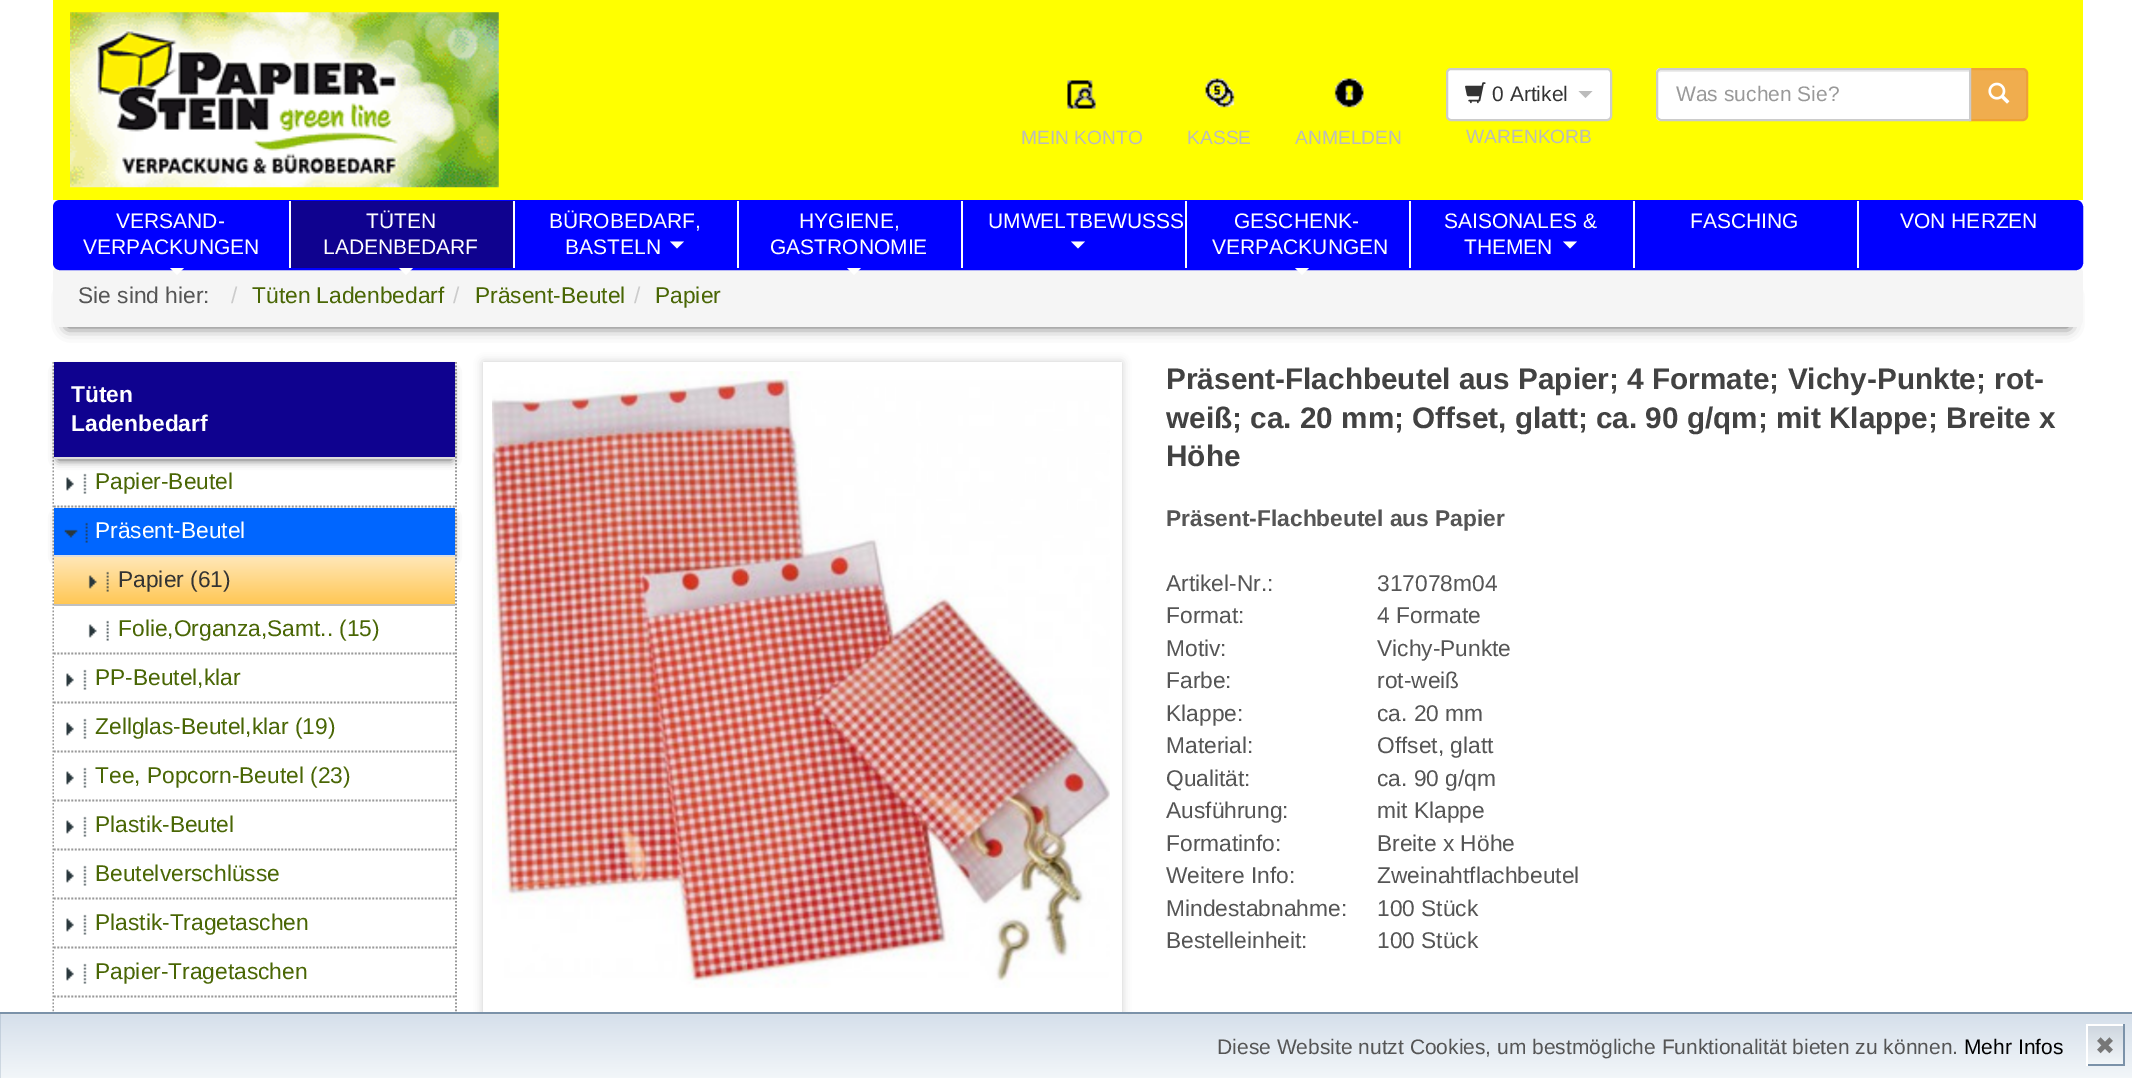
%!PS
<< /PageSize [2132 1078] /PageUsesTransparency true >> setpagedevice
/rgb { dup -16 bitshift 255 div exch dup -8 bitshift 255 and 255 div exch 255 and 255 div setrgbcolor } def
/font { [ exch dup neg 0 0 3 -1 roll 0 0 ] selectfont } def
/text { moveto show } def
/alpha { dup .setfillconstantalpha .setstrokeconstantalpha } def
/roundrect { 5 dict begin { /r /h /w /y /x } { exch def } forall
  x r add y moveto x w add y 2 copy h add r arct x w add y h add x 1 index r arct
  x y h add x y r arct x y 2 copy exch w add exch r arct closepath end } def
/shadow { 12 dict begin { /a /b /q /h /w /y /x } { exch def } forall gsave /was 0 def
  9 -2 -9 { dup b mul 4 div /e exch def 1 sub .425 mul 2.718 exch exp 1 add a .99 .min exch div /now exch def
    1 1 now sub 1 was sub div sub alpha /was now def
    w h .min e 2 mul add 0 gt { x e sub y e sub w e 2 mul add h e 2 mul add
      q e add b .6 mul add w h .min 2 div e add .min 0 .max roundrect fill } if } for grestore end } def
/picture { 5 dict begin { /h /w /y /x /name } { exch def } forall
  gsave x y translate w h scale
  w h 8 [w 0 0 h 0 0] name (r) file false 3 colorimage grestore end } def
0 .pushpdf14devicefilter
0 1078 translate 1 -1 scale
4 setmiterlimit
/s1 { /LiberationSans-Regular 21 font 16#333333 rgb } def
/s2 { /LiberationSans-Regular 19.25 font 16#BCBCBC rgb } def
/s3 { /LiberationSans-Regular 21 font 16#999999 rgb } def
/s4 { /LiberationSans-Regular 21 font 16#FFFFFF rgb } def
/s5 { /LiberationSans-Regular 22.75 font 16#555555 rgb } def
/s6 { /LiberationSans-Regular 22.75 font 16#CCCCCC rgb } def
/s7 { /LiberationSans-Regular 22.75 font 16#496604 rgb } def
/s8 { /LiberationSans-Bold 22.75 font 16#FFFFFF rgb } def
/s9 { /LiberationSans-Regular 22.75 font 16#FFFFFF rgb } def
/s10 { /LiberationSans-Regular 22.75 font 16#333333 rgb } def
/s11 { /LiberationSans-Bold 29.75 font 16#424242 rgb } def
/s12 { /LiberationSans-Bold 22.75 font 16#555555 rgb } def
/s13 { /LiberationSans-Regular 21 font 16#555555 rgb } def
/s14 { /LiberationSans-Regular 21 font 16#000000 rgb } def
/s15 { /DejaVuSans-Regular 24 font 16#777777 rgb } def
16#FFFFFF rgb
0 0 2132 1078 rectfill
16#FFFF00 rgb
53 0 2030 200 rectfill
(pic1.raw) 70 12 429 176 picture
16#FFFFFF rgb
1447 69 164 51 4 roundrect gsave fill grestore
16#CCCCCC rgb
2 setlinewidth
stroke
(pic2.raw) 1465 82 21 22 picture
s1
(0 Artikel) 1492 101 text
16#BCBCBC rgb
1578.5 91 moveto 1592.5 91 lineto 1585.5 98 lineto closepath fill
s2
(WARENKORB) 1466 143 text
16#F0AD4E rgb
1970 69 moveto 2023 69 lineto 2025 69 2027 71 2027 73 curveto 2027 116 lineto 2027 118 2025 120 2023 120 curveto 1970 120 lineto closepath gsave fill grestore
16#EEA236 rgb
stroke
16#FFFFFF rgb
1661 68 moveto 1971 68 lineto 1971 121 lineto 1661 121 lineto 1658 121 1656 119 1656 116 curveto 1656 73 lineto 1656 70 1658 68 1661 68 curveto closepath fill
16#ECECEC rgb
1661 72 moveto 1969 72 lineto 1969 70 lineto 1661 70 lineto 1659 70 1657 72 1657 74 curveto 1657 75 lineto 1657 73 1659 72 1661 72 curveto closepath fill
16#CCCCCC rgb
1661 69 moveto 1970 69 lineto 1970 120 lineto 1661 120 lineto 1659 120 1657 118 1657 116 curveto 1657 73 lineto 1657 71 1659 69 1661 69 curveto closepath stroke
s3
(Was suchen Sie?) 1676 101 text
(pic3.raw) 1988 82 22 22 picture
(pic4.raw) 1067 80 29 29 picture
s2
(MEIN KONTO) 1021 144 text
(pic5.raw) 1205 78 30 30 picture
(KASSE) 1187 144 text
(pic6.raw) 1334 78 30 30 picture
(ANMELDEN) 1295 144 text
16#555555 rgb
67 294 2002 33 0 7 1 shadow
16#F5F5F5 rgb
53 266 2030 61 7 roundrect fill
16#0000FF rgb
54 201 2028 68 6 roundrect gsave fill grestore
stroke
s4
(VERSAND-) 116 228 text
(VERPACKUNGEN) 83 254 text
170 268 moveto 184 268 lineto 177 275 lineto closepath fill
16#0F028F rgb
291 201 222 67 rectfill
16#FFFFFF rgb
289 201 2 67 rectfill
(TÜTEN) 366 228 text
(LADENBEDARF) 323 254 text
399 268 moveto 413 268 lineto 406 275 lineto closepath fill
513 201 2 67 rectfill
(BÜROBEDARF,) 549 228 text
(BASTELN) 565 254 text
670 241.5 moveto 684 241.5 lineto 677 248.5 lineto closepath fill
737 201 2 67 rectfill
(HYGIENE,) 799 228 text
(GASTRONOMIE) 770 254 text
847 268 moveto 861 268 lineto 854 275 lineto closepath fill
961 201 2 67 rectfill
(UMWELTBEWUSSS) 988 228 text
1071 241.5 moveto 1085 241.5 lineto 1078 248.5 lineto closepath fill
1185 201 2 67 rectfill
(GESCHENK-) 1234 228 text
(VERPACKUNGEN) 1212 254 text
1295 268 moveto 1309 268 lineto 1302 275 lineto closepath fill
1409 201 2 67 rectfill
(SAISONALES &) 1444 228 text
(THEMEN) 1464 254 text
1563 241.5 moveto 1577 241.5 lineto 1570 248.5 lineto closepath fill
1633 201 2 67 rectfill
(FASCHING) 1690 228 text
1857 201 2 67 rectfill
(VON HERZEN) 1900 228 text
s5
(Sie sind hier:) 78 303 text
s6
(/) 231 303 text
s7
(Tüten Ladenbedarf) 252 303 text
s6
(/) 453 303 text
s7
(Präsent-Beutel) 475 303 text
s6
(/) 634 303 text
s7
(Papier) 655 303 text
16#999999 rgb
1.8 setlinewidth
[1.75 1.75] 0 setdash
456 362 moveto 456 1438.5 lineto stroke
53.5 362 moveto 53.5 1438.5 lineto stroke
16#FFFFFF rgb
54 460 1 48 rectfill
(pic7.raw) 66 473 21 21 picture
16#555555 rgb
58 371 394 89 0 4.5 1 shadow
16#0F028F rgb
54 362 401 95 rectfill
16#DDDDDD rgb
54 457 401 2 rectfill
s8
(Tüten) 71 402 text
(Ladenbedarf) 71 431 text
16#999999 rgb
54 506.5 moveto 455 506.5 lineto stroke
s7
(Papier-Beutel) 95 489 text
16#FFFFFF rgb
54 607 1 48 rectfill
16#555555 rgb
58 516 394 42 0 4.5 1 shadow
16#0066FF rgb
54 508 401 47 rectfill
16#DDDDDD rgb
54 555 401 2 rectfill
(pic8.raw) 64 522 24 21 picture
s9
(Präsent-Beutel) 95 538 text
gsave 54 557 moveto 455 557 lineto 455 604 lineto 54 604 lineto closepath clip newpath
<< /ShadingType 2 /ColorSpace /DeviceRGB /Coords [255 557 255 604] /Extend [true true] /Function << /FunctionType 2 /Domain [0 1] /C0 [1 0.906 0.718] /C1 [1 0.78 0.333] /N 1 >> >> shfill grestore
16#C0C0C0 rgb
54 604 401 2 rectfill
(pic9.raw) 88 571 21 21 picture
s10
(Papier \(61\)) 118 587 text
16#999999 rgb
54 653.5 moveto 455 653.5 lineto stroke
(pic10.raw) 88 620 21 21 picture
s7
(Folie,Organza,Samt.. \(15\)) 118 636 text
16#FFFFFF rgb
54 656 1 48 rectfill
16#999999 rgb
54 702.5 moveto 455 702.5 lineto stroke
(pic7.raw) 66 669 21 21 picture
s7
(PP-Beutel,klar) 95 685 text
16#FFFFFF rgb
54 705 1 48 rectfill
16#999999 rgb
54 751.5 moveto 455 751.5 lineto stroke
(pic7.raw) 66 718 21 21 picture
s7
(Zellglas-Beutel,klar \(19\)) 95 734 text
16#FFFFFF rgb
54 754 1 48 rectfill
16#999999 rgb
54 800.5 moveto 455 800.5 lineto stroke
(pic7.raw) 66 767 21 21 picture
s7
(Tee, Popcorn-Beutel \(23\)) 95 783 text
16#FFFFFF rgb
54 803 1 48 rectfill
16#999999 rgb
54 849.5 moveto 455 849.5 lineto stroke
(pic7.raw) 66 816 21 21 picture
s7
(Plastik-Beutel) 95 832 text
16#FFFFFF rgb
54 852 1 48 rectfill
16#999999 rgb
54 898.5 moveto 455 898.5 lineto stroke
(pic7.raw) 66 865 21 21 picture
s7
(Beutelverschlüsse) 95 881 text
16#FFFFFF rgb
54 901 1 48 rectfill
16#999999 rgb
54 947.5 moveto 455 947.5 lineto stroke
(pic7.raw) 66 914 21 21 picture
s7
(Plastik-Tragetaschen) 95 930 text
16#FFFFFF rgb
54 950 1 48 rectfill
16#999999 rgb
54 996.5 moveto 455 996.5 lineto stroke
(pic7.raw) 66 963 21 21 picture
s7
(Papier-Tragetaschen) 95 979 text
16#FFFFFF rgb
54 999 1 13 rectfill
16#CCCCCC rgb
483 362 639 653 0 4.5 1 shadow
16#FFFFFF rgb
483 362 639 650 rectfill
(pic11.raw) 492 371 618 617 picture
s11
(Präsent-Flachbeutel aus Papier; 4 Formate; Vichy-Punkte; rot-) 1166 389 text
(weiß; ca. 20 mm; Offset, glatt; ca. 90 g/qm; mit Klappe; Breite x) 1166 428 text
(Höhe) 1166 466 text
s12
(Präsent-Flachbeutel aus Papier) 1166 526 text
s5
(Artikel-Nr.:) 1166 591 text
(317078m04) 1377 591 text
(Format:) 1166 623 text
(4 Formate) 1377 623 text
(Motiv:) 1166 656 text
(Vichy-Punkte) 1377 656 text
(Farbe:) 1166 688 text
(rot-weiß) 1377 688 text
(Klappe:) 1166 721 text
(ca. 20 mm) 1377 721 text
(Material:) 1166 753 text
(Offset, glatt) 1377 753 text
(Qualität:) 1166 786 text
(ca. 90 g/qm) 1377 786 text
(Ausführung:) 1166 818 text
(mit Klappe) 1377 818 text
(Formatinfo:) 1166 851 text
(Breite x Höhe) 1377 851 text
(Weitere Info:) 1166 883 text
(Zweinahtflachbeutel) 1377 883 text
(Mindestabnahme:) 1166 916 text
(100 Stück) 1377 916 text
(Bestelleinheit:) 1166 948 text
(100 Stück) 1377 948 text
gsave 0 1015 moveto 2132 1015 lineto 2132 1078 lineto 0 1078 lineto closepath clip newpath
<< /ShadingType 2 /ColorSpace /DeviceRGB /Coords [1067 1015 1067 1078] /Extend [true true] /Function << /FunctionType 2 /Domain [0 1] /C0 [0.839 0.878 0.922] /C1 [0.949 0.965 0.976] /N 1 >> >> shfill grestore
16#FFFFFF rgb
52 1014 1076 1 rectfill
16#7B92A9 rgb
2 setlinewidth
[] 0 setdash
-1 1013 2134 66 rectstroke
s13
(Diese Website nutzt Cookies, um bestmögliche Funktionalität bieten zu können.) 1217 1054 text
s14
(Mehr Infos) 1964 1054 text
gsave 2088 1026 moveto 2123 1026 lineto 2123 1064 lineto 2088 1064 lineto closepath clip newpath
<< /ShadingType 2 /ColorSpace /DeviceRGB /Coords [2088 1026 2088 1064] /Extend [true true] /Function << /FunctionType 2 /Domain [0 1] /C0 [0.808 0.839 0.875] /C1 [0.949 0.965 0.976] /N 1 >> >> shfill grestore
16#FFFFFF rgb
2086 1024 39 2 rectfill
16#7B92A9 rgb
2123 1024 2 42 rectfill
2086 1064 39 2 rectfill
16#FFFFFF rgb
2086 1024 2 42 rectfill
s15
(✖) 2095 1054 text
.poppdf14devicefilter showpage
